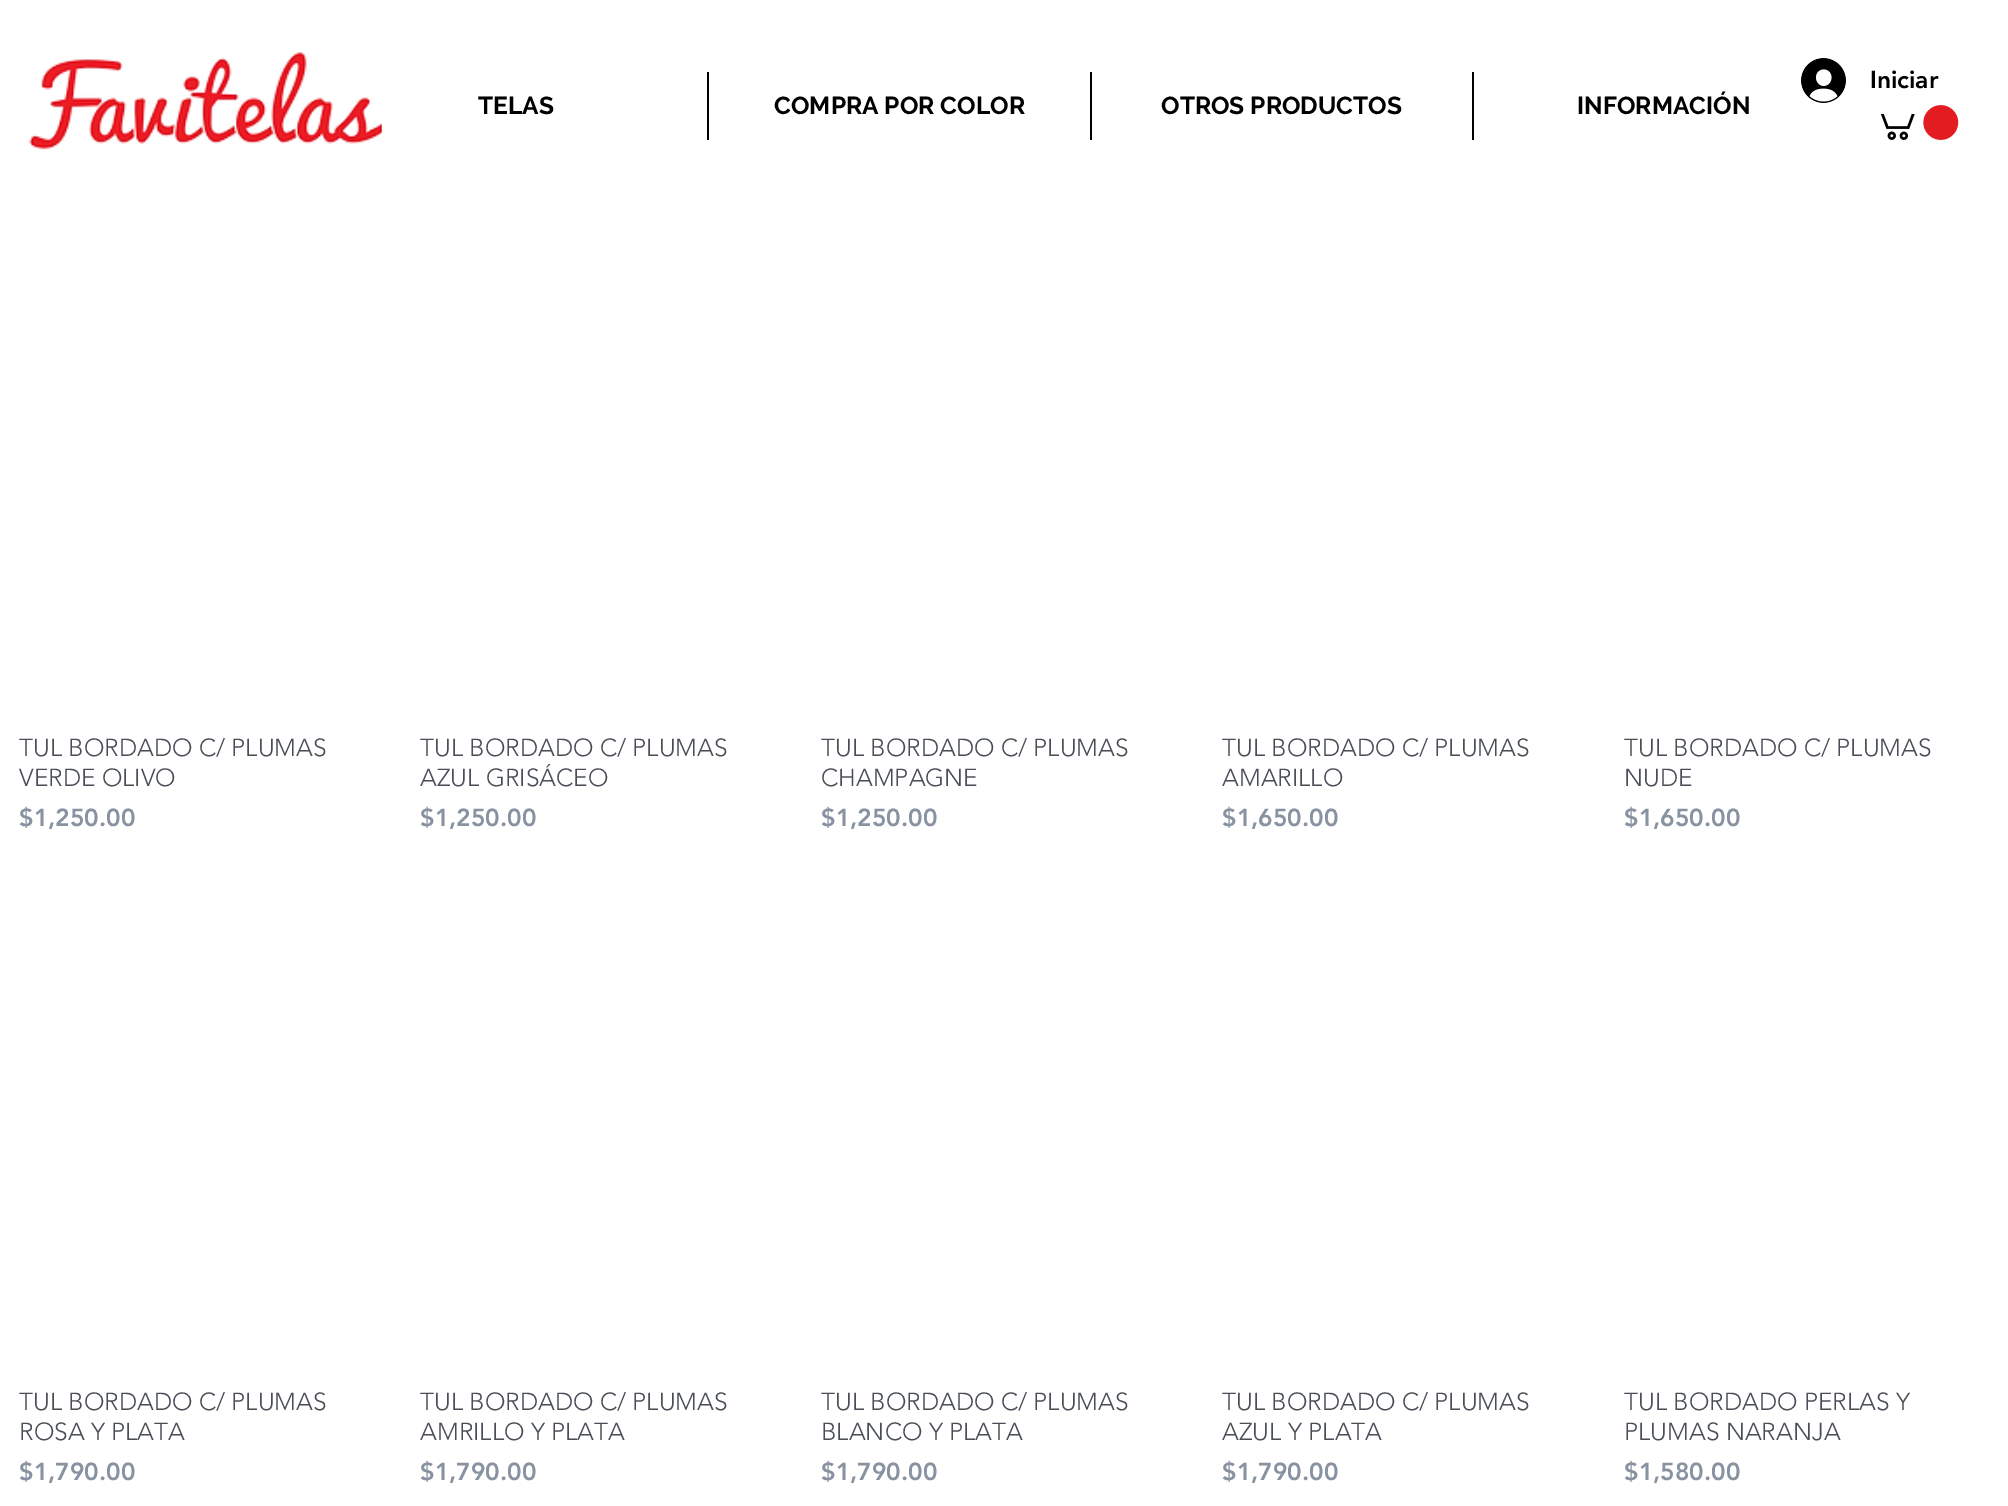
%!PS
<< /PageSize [2008 1506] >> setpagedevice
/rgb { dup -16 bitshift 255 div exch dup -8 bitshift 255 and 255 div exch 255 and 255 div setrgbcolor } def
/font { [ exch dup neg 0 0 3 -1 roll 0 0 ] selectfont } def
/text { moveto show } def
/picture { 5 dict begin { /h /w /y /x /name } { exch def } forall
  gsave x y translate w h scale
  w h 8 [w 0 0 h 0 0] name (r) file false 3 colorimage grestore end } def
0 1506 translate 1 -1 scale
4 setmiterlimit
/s1 { /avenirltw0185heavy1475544-Black 24.5 font 16#000000 rgb } def
/s2 { /Raleway-Bold 24.5 font 16#000000 rgb } def
/s3 { /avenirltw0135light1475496-Light 24.5 font 16#484D56 rgb } def
/s4 { /avenirltw0185heavy1475544-Black 24.5 font 16#8892A1 rgb } def
16#FFFFFF rgb
0 0 2008 1506 rectfill
(pic1.raw) 29 52 353 98 picture
(pic3.raw) 1880 105 79 35 picture
1880 105 37 9 rectfill
(pic2.raw) 1801 58 45 45 picture
s1
(Iniciar) 1870 88 text
s2
(TELAS) 478 114 text
707 72 2 68 rectfill
(COMPRA POR COLOR) 774 114 text
1090 72 2 68 rectfill
(OTROS PRODUCTOS) 1161 114 text
1472 72 2 68 rectfill
(INFORMACIÓN) 1577 114 text
s3
(TUL BORDADO C/ PLUMAS) 19 756 text
(VERDE OLIVO) 19 786 text
s4
($1,250.00) 19 826 text
s3
(TUL BORDADO C/ PLUMAS) 420 756 text
(AZUL GRISÁCEO) 420 786 text
s4
($1,250.00) 420 826 text
s3
(TUL BORDADO C/ PLUMAS) 821 756 text
(CHAMPAGNE) 821 786 text
s4
($1,250.00) 821 826 text
s3
(TUL BORDADO C/ PLUMAS) 1222 756 text
(AMARILLO) 1222 786 text
s4
($1,650.00) 1222 826 text
s3
(TUL BORDADO C/ PLUMAS) 1624 756 text
(NUDE) 1624 786 text
s4
($1,650.00) 1624 826 text
s3
(TUL BORDADO C/ PLUMAS) 19 1410 text
(ROSA Y PLATA) 19 1440 text
s4
($1,790.00) 19 1480 text
s3
(TUL BORDADO C/ PLUMAS) 420 1410 text
(AMRILLO Y PLATA) 420 1440 text
s4
($1,790.00) 420 1480 text
s3
(TUL BORDADO C/ PLUMAS) 821 1410 text
(BLANCO Y PLATA) 821 1440 text
s4
($1,790.00) 821 1480 text
s3
(TUL BORDADO C/ PLUMAS) 1222 1410 text
(AZUL Y PLATA) 1222 1440 text
s4
($1,790.00) 1222 1480 text
s3
(TUL BORDADO PERLAS Y) 1624 1410 text
(PLUMAS NARANJA) 1624 1440 text
s4
($1,580.00) 1624 1480 text
showpage
